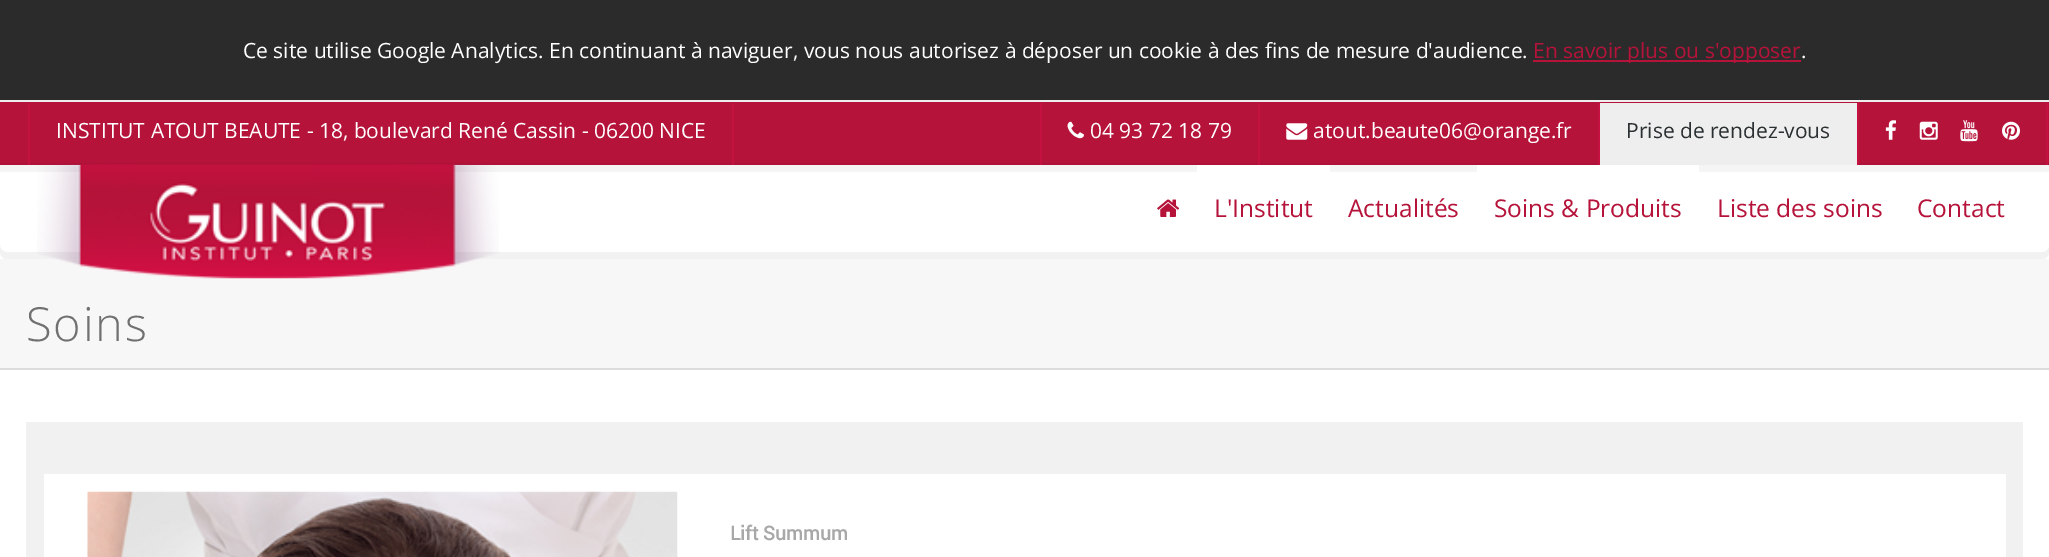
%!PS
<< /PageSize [2049 557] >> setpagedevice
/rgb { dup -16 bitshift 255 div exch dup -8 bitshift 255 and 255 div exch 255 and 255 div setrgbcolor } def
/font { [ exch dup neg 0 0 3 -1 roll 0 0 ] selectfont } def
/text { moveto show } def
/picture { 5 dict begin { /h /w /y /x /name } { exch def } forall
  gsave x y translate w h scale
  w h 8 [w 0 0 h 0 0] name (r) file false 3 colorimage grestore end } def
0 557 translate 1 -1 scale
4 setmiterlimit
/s1 { /OpenSans-Regular 21 font 16#FFFFFF rgb } def
/s2 { /OpenSans-Regular 21 font 16#B6133A rgb } def
/s3 { /OpenSans-Regular 21 font 16#2B3033 rgb } def
/s4 { /OpenSans-Regular 24.5 font 16#B6133A rgb } def
/s5 { /Roboto-Bold 19.25 font 16#A8A8A8 rgb } def
16#FFFFFF rgb
0 0 2049 557 rectfill
16#2C2B2B rgb
0 0 2049 100 rectfill
16#EEEEEE rgb
0 100 2049 2 rectfill
s1
(Ce site utilise Google Analytics. En continuant à naviguer, vous nous autorisez à déposer un cookie à des fins de mesure d'audience.) 243 58 text
16#B6133A rgb
1533 60 268 2 rectfill
(En savoir plus ou s'opposer) 1533 58 text
s1
(.) 1801 58 text
16#F5F5F5 rgb
0 165 2049 7 rectfill
16#B6133A rgb
0 102 2049 61 rectfill
16#AF1238 rgb
0 163 2049 2 rectfill
16#C3123F rgb
732 103 2 62 rectfill
28 103 2 62 rectfill
s1
(INSTITUT ATOUT BEAUTE - 18, boulevard René Cassin - 06200 NICE) 56 138 text
16#C3123F rgb
1040 103 2 62 rectfill
(pic1.raw) 1067 121 17 18 picture
s1
(04 93 72 18 79) 1090 138 text
16#C3123F rgb
1258 103 2 62 rectfill
(pic2.raw) 1286 123 22 17 picture
s1
(atout.beaute06@orange.fr) 1313 138 text
16#C3123F rgb
1598 103 2 62 rectfill
16#EEEEEE rgb
1600 103 257 62 rectfill
s3
(Prise de rendez-vous) 1626 138 text
16#C3123F rgb
2046 103 2 62 rectfill
1857 103 2 62 rectfill
(pic3.raw) 1885 120 11 20 picture
(pic4.raw) 1919 121 19 19 picture
(pic5.raw) 1960 120 18 22 picture
(pic6.raw) 2002 121 18 19 picture
16#F2F2F2 rgb
0 245 moveto 0 252 lineto 0 256 3 259 7 259 curveto 2042 259 lineto 2046 259 2049 256 2049 252 curveto 2049 247 lineto 2048 250 2045 252 2042 252 curveto 7 252 lineto 3 252 0 249 0 245 curveto closepath fill
16#F7F7F7 rgb
0 259 2049 109 rectfill
(pic7.raw) 37 164 462 115 picture
(pic8.raw) 1157 199 23 18 picture
16#FFFFFF rgb
1197 165 133 7 rectfill
s4
(L'Institut) 1214 217 text
(Actualités) 1348 217 text
16#FFFFFF rgb
1477 165 222 7 rectfill
s4
(Soins & Produits) 1494 217 text
(Liste des soins) 1717 217 text
(Contact) 1917 217 text
16#DDDDDD rgb
0 368 2049 2 rectfill
/OpenSans-Light 47 font
16#707070 rgb
26 341 moveto 1.75 0 (Soins) ashow
16#F1F1F1 rgb
26 422 1997 135 rectfill
16#FFFFFF rgb
44 474 1962 83 rectfill
(pic9.raw) 87 491 591 66 picture
s5
(Lift Summum) 730 540 text
showpage
